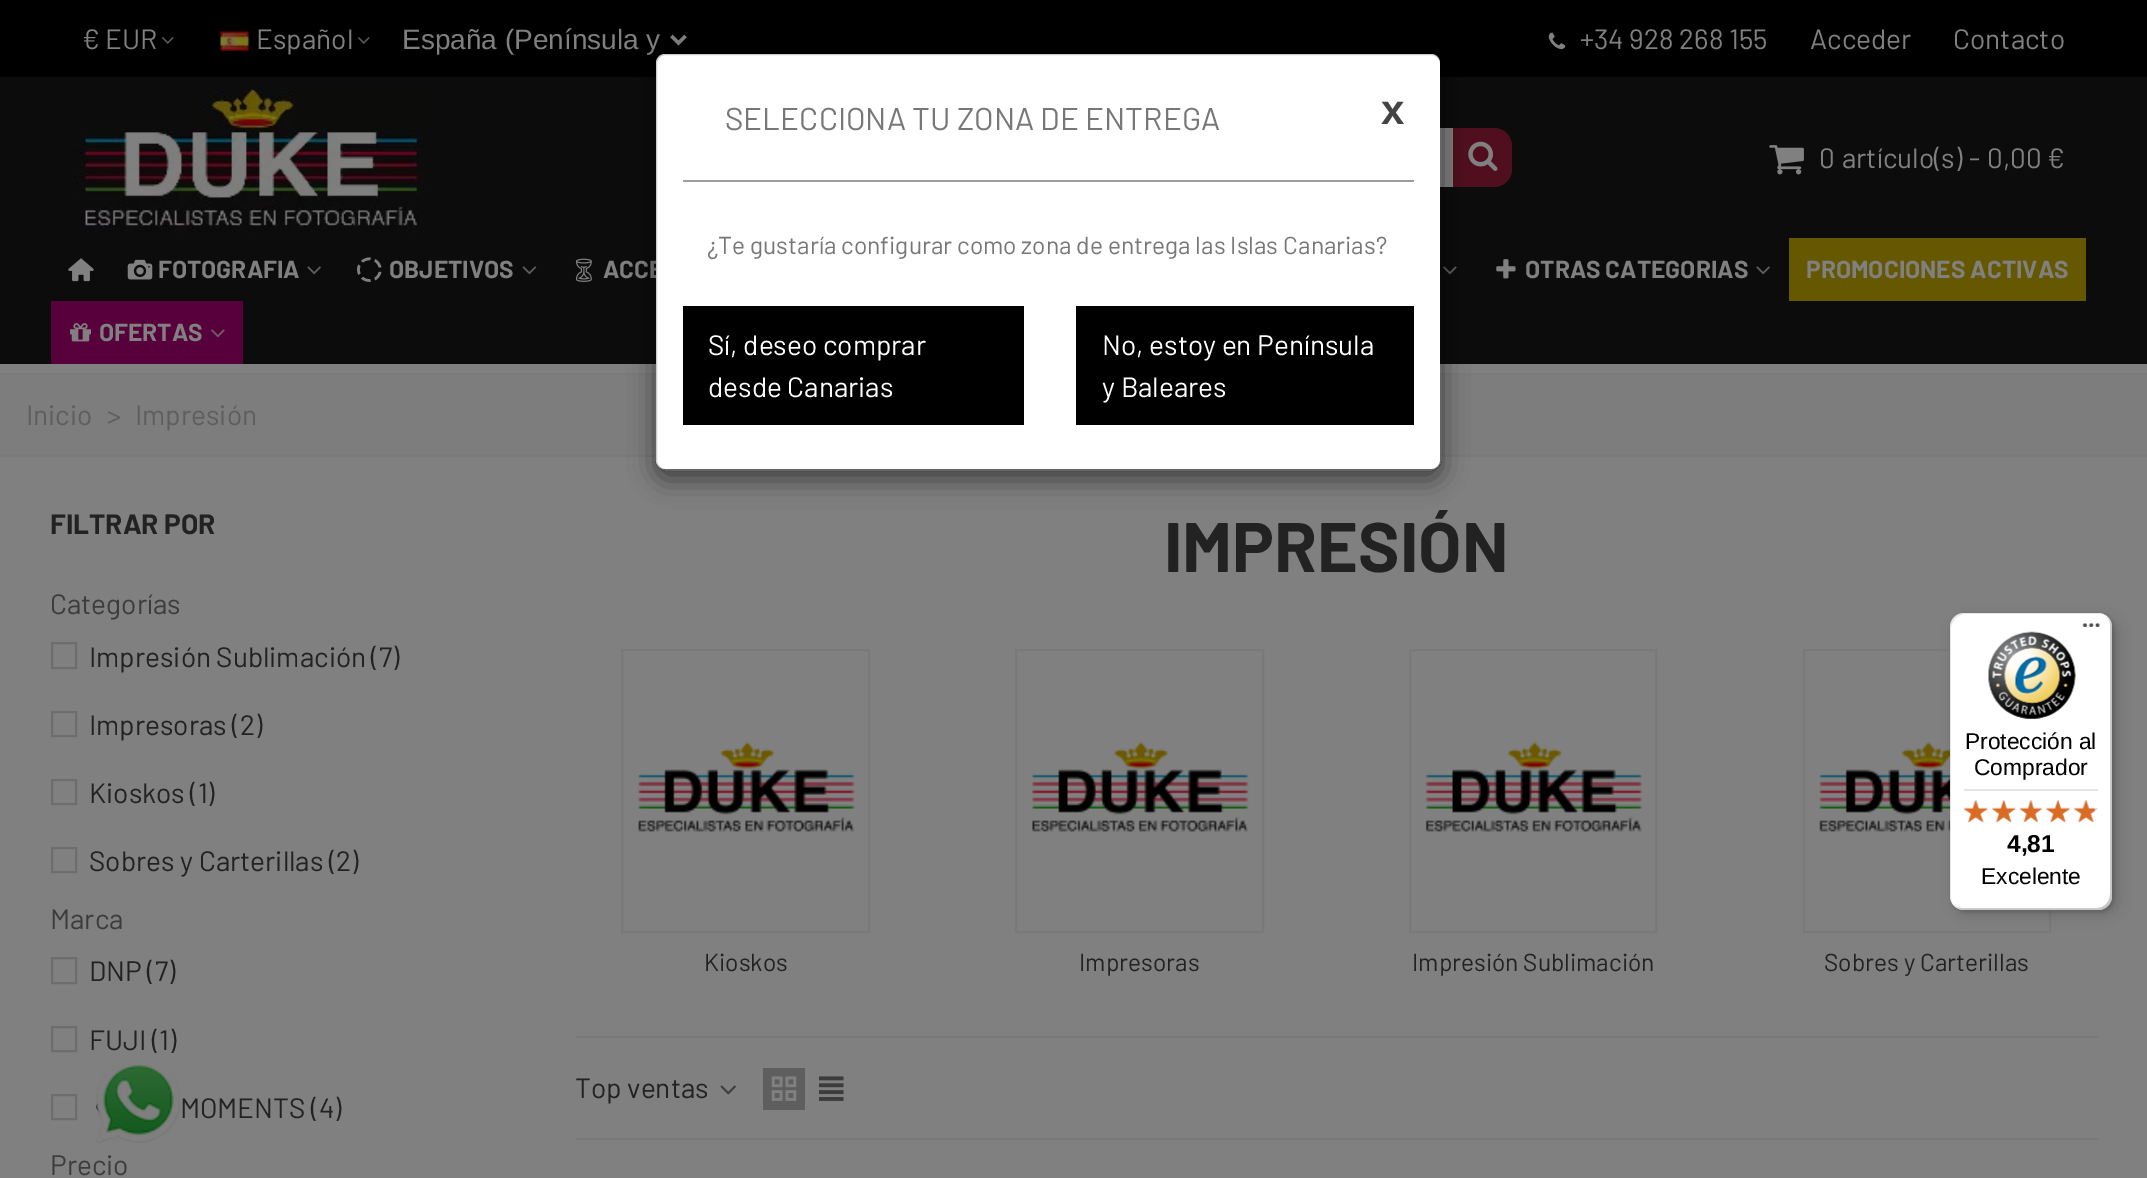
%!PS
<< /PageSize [2147 1178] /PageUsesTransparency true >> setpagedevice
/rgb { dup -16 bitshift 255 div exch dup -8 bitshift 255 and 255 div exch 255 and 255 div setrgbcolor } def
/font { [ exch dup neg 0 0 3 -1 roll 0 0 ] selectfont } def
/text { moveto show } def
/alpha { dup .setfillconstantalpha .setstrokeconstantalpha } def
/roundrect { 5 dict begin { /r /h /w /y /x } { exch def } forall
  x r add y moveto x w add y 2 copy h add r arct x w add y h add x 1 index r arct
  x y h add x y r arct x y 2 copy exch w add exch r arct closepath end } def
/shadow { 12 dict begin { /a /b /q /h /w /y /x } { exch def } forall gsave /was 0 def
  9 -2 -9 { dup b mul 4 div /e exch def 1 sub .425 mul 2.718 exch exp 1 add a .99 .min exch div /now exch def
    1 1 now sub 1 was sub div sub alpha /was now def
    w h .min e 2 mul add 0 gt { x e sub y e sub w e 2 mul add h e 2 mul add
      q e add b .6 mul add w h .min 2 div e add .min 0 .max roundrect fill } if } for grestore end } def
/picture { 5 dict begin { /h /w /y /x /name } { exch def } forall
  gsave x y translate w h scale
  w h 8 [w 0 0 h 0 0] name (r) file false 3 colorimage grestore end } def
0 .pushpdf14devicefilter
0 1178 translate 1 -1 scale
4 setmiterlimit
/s1 { /Barlow-Regular 28 font 16#808080 rgb } def
/s2 { /LiberationSans-Regular 28 font 16#808080 rgb } def
/s3 { /Barlow-Bold 24.5 font 16#808080 rgb } def
/s4 { /Barlow-Regular 28 font 16#5E5E5E rgb } def
/s5 { /Barlow-Bold 28 font 16#222222 rgb } def
/s6 { /Barlow-Regular 28 font 16#3C3C3C rgb } def
/s7 { /Barlow-Regular 28 font 16#222222 rgb } def
/s8 { /Barlow-Bold 70 font 16#222222 rgb } def
/s9 { /Barlow-Regular 24.5 font 16#222222 rgb } def
/s10 { /Barlow-Regular 31.5 font 16#777777 rgb } def
/s11 { /LiberationSans-Bold 42 font 16#444444 rgb } def
/s12 { /Barlow-Regular 24.5 font 16#777777 rgb } def
/s13 { /Barlow-Regular 28 font 16#FFFFFF rgb } def
/s14 { /LiberationSans-Regular 22.75 font 16#000000 rgb } def
/s15 { /LiberationSans-Bold 24.5 font 16#000000 rgb } def
16#808080 rgb
0 0 2147 1178 rectfill
16#000000 rgb
0 0 2147 77 rectfill
s1
(€ EUR) 82 49 text
(pic1.raw) 162 37 12 7 picture
(pic2.raw) 220 31 29 20 picture
(Español) 256 49 text
(pic1.raw) 358 37 12 7 picture
3.5 setlinewidth
671.5 36 moveto 678.5 43 lineto 685.5 36 lineto stroke
s2
(España \(Península y) 402 49 text
(pic3.raw) 1548 32 18 18 picture
s1
(+34 928 268 155) 1580 49 text
(Acceder) 1810 49 text
(Contacto) 1953 49 text
16#0C0C0C rgb
0 77 2147 287 rectfill
(pic4.raw) 74 88 351 146 picture
16#808080 rgb
1440 128 13 59 rectfill
16#500F1E rgb
1453 128 moveto 1494 128 lineto 1504 128 1512 136 1512 146 curveto 1512 169 lineto 1512 179 1504 187 1494 187 curveto 1453 187 lineto closepath fill
(pic5.raw) 1468 141 30 30 picture
(pic6.raw) 1769 145 35 30 picture
s1
(0) 1819 168 text
(artículo\(s\)) 1842 168 text
(-) 1969 168 text
(0,00 €) 1987 168 text
(pic7.raw) 68 258 26 24 picture
(pic8.raw) 127 259 26 21 picture
s3
(FOTOGRAFIA) 158 278 text
(pic9.raw) 307 266 14 9 picture
(pic10.raw) 357 257 25 25 picture
(OBJETIVOS) 389 278 text
(pic11.raw) 522 266 15 9 picture
(pic12.raw) 575 258 17 24 picture
(ACCE) 603 278 text
(pic13.raw) 1443 266 14 9 picture
(pic14.raw) 1496 259 20 20 picture
(OTRAS CATEGORIAS) 1525 278 text
(pic9.raw) 1756 266 14 9 picture
16#665800 rgb
1789 238 297 63 rectfill
s3
(PROMOCIONES ACTIVAS) 1806 278 text
16#58003C rgb
51 301 192 63 rectfill
(pic15.raw) 70 323 21 19 picture
s3
(OFERTAS) 99 341 text
(pic16.raw) 211 329 14 9 picture
16#7D7D7D rgb
0 375 2147 80 rectfill
16#7A7A7A rgb
0 373 2147 2 rectfill
0 455 2147 2 rectfill
s4
(Inicio) 26 425 text
(>) 107 425 text
(Impresión) 135 425 text
s5
(FILTRAR POR) 50 534 text
s6
(Categorías) 50 614 text
16#6D6D6D rgb
2 setlinewidth
52 643 24 25 rectstroke
s7
(Impresión Sublimación \(7\)) 89 667 text
16#6D6D6D rgb
52 712 24 24 rectstroke
s7
(Impresoras \(2\)) 89 735 text
16#6D6D6D rgb
52 780 24 24 rectstroke
s7
(Kioskos \(1\)) 89 803 text
16#6D6D6D rgb
52 848 24 24 rectstroke
s7
(Sobres y Carterillas \(2\)) 89 871 text
s6
(Marca) 50 929 text
16#6D6D6D rgb
52 958 24 25 rectstroke
s7
(DNP \(7\)) 89 981 text
16#6D6D6D rgb
52 1027 24 24 rectstroke
s7
(FUJI \(1\)) 89 1050 text
16#6D6D6D rgb
52 1095 24 24 rectstroke
s7
(MOMENTS \(4\)) 180 1118 text
s6
(Precio) 50 1175 text
s8
(IMPRESIÓN) 1164 572 text
16#797979 rgb
622 650 247 282 rectstroke
(pic17.raw) 638 741 217 91 picture
s9
(Kioskos) 704 971 text
16#797979 rgb
1016 650 247 282 rectstroke
(pic18.raw) 1032 741 217 91 picture
s9
(Impresoras) 1079 971 text
16#797979 rgb
1410 650 246 282 rectstroke
(pic19.raw) 1425 741 217 91 picture
s9
(Impresión Sublimación) 1412 971 text
16#797979 rgb
1804 650 246 282 rectstroke
(pic20.raw) 1819 741 131 91 picture
s9
(Sobres y Carterillas) 1824 971 text
16#797979 rgb
576 1036 1522 2 rectfill
576 1138 1522 2 rectfill
s7
(Top ventas) 575 1098 text
(pic21.raw) 720 1085 16 10 picture
16#5E5E5E rgb
763 1068 42 42 rectfill
(pic22.raw) 771 1076 26 25 picture
(pic23.raw) 819 1076 25 25 picture
(pic24.raw) 96 1064 84 79 picture
gsave
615 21 moveto 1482 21 lineto 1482 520 lineto 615 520 lineto closepath 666 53 moveto 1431 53 lineto 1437 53 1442 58 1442 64 curveto 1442 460 lineto 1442 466 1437 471 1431 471 curveto 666 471 lineto 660 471 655 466 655 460 curveto 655 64 lineto 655 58 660 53 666 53 curveto closepath eoclip newpath
16#000000 rgb
655 61 787 419 11 13 0.5 shadow
grestore
16#FFFFFF rgb
656 54 784 415 9 roundrect fill
0.2 alpha
16#000000 rgb
656 54 785 416 10 roundrect stroke
1 alpha
16#9D9D9D rgb
683 180 731 2 rectfill
s10
(SELECCIONA TU ZONA DE ENTREGA) 725 130 text
s11
(x) 1381 124 text
s12
(¿Te gustaría configurar como zona de entrega las Islas Canarias?) 707 254 text
16#000000 rgb
683 306 341 119 rectfill
s13
(Sí, deseo comprar) 708 355 text
(desde Canarias) 708 397 text
16#000000 rgb
1076 306 338 119 rectfill
s13
(No, estoy en Península) 1102 355 text
(y Baleares) 1102 397 text
16#000000 rgb
1955 618 163 297 14 7 0.15 shadow
1951 614 163 298 14 2 0.15 shadow
16#FFFFFF rgb
1950 613 162 297 14 roundrect fill
0.1 alpha
16#000000 rgb
1965 614 moveto 2100 614 lineto 2102 614 2104 614 2105 615 curveto 2103 614 2101 613 2098 613 curveto 1964 613 lineto 1956 613 1950 619 1950 627 curveto 1950 896 lineto 1950 899 1951 902 1953 905 curveto 1952 903 1951 900 1951 898 curveto 1951 628 lineto 1951 621 1958 614 1965 614 curveto closepath fill
0.2 alpha
1954 905 moveto 1956 908 1960 910 1964 910 curveto 2098 910 lineto 2106 910 2112 904 2112 896 curveto 2112 627 lineto 2112 623 2110 619 2107 617 curveto 2109 619 2110 622 2110 625 curveto 2110 894 lineto 2110 902 2104 908 2096 908 curveto 1962 908 lineto 1959 908 1956 907 1954 905 curveto closepath fill
16#323232 rgb
1956 908 moveto 1958 909 1961 910 1964 910 curveto 2098 910 lineto 2106 910 2112 904 2112 896 curveto 2112 627 lineto 2112 624 2111 621 2110 619 curveto 2111 621 2111 623 2111 625 curveto 2111 895 lineto 2111 903 2105 909 2097 909 curveto 1962 909 lineto 1960 909 1958 909 1956 908 curveto closepath fill
0.3 alpha
16#FFFFFF rgb
1955 906 moveto 1957 909 1960 910 1964 910 curveto 2098 910 lineto 2106 910 2112 904 2112 896 curveto 2112 627 lineto 2112 623 2111 620 2108 618 curveto 2110 620 2111 623 2111 626 curveto 2111 895 lineto 2111 903 2105 909 2097 909 curveto 1963 909 lineto 1960 909 1957 908 1955 906 curveto closepath fill
1 alpha
(pic25.raw) 2082 623 18 4 picture
(pic26.raw) 1988 631 88 88 picture
s14
(Protección al) 1965 749 text
(Comprador) 1974 775 text
16#E5E5E5 rgb
1964 789 134 2 rectfill
(pic32.raw) 1964 800 24 22 picture
(pic27.raw) 1963 799 25 24 picture
(pic33.raw) 1992 800 24 23 picture
(pic28.raw) 1991 799 25 24 picture
(pic34.raw) 2019 800 23 22 picture
(pic29.raw) 2019 799 24 24 picture
(pic35.raw) 2046 800 24 22 picture
(pic30.raw) 2045 799 25 24 picture
(pic36.raw) 2074 800 24 22 picture
(pic31.raw) 2073 799 23 24 picture
s15
(4,81) 2007 852 text
s14
(Excelente) 1981 884 text
.poppdf14devicefilter showpage
